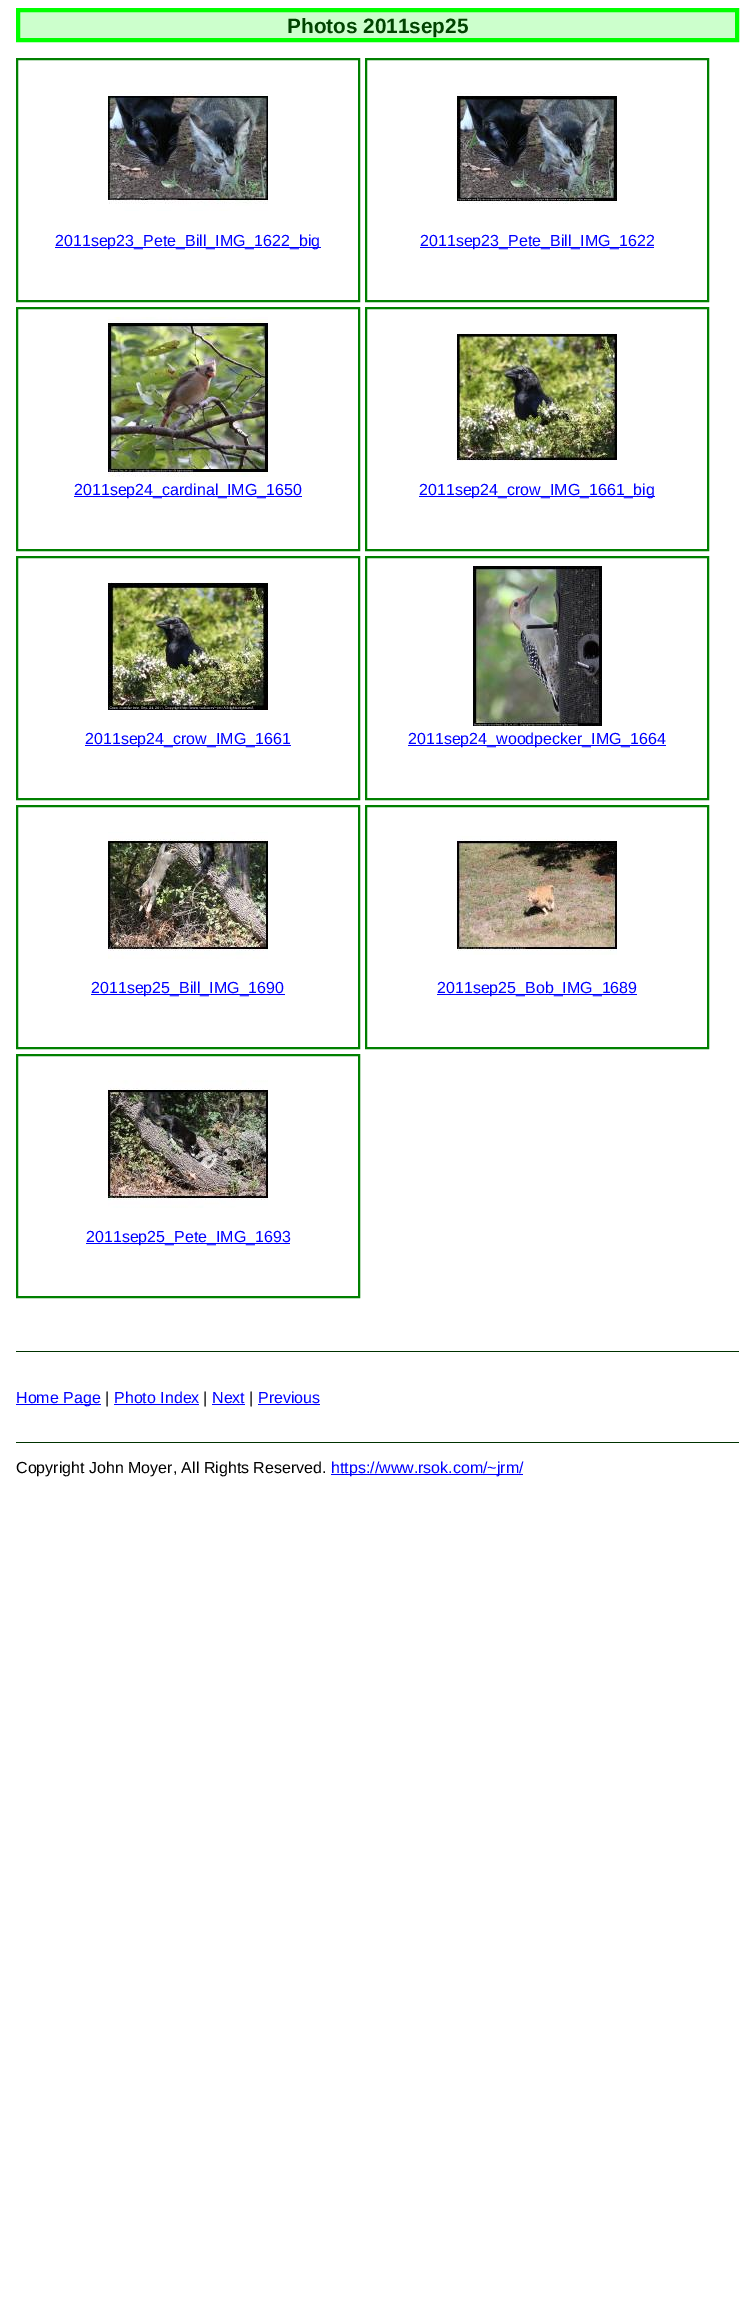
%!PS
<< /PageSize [755 2317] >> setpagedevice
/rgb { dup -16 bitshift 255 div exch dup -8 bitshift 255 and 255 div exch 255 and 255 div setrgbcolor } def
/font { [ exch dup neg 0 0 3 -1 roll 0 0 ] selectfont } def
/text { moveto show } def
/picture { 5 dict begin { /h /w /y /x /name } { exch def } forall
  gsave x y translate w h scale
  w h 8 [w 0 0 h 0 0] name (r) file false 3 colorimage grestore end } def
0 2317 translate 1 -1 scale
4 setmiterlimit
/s1 { /LiberationSans-Bold 20.75 font 16#004400 rgb } def
/s2 { /LiberationSans-Regular 16 font 16#0000FF rgb } def
/s3 { /LiberationSans-Regular 16 font 16#000000 rgb } def
16#FFFFFF rgb
0 0 755 2317 rectfill
16#CCFFCC rgb
18 10 moveto 737 10 lineto 737 40 lineto 18 40 lineto closepath gsave fill grestore
16#00FF00 rgb
4 setlinewidth
stroke
s1
(Photos 2011sep25) 287 33 text
16#008000 rgb
2 setlinewidth
17 59 342 242 rectstroke
(pic1.raw) 108 90 160 121 picture
16#0000FF rgb
55 247 266 1 rectfill
s2
(2011sep23_Pete_Bill_IMG_1622_big) 55 246 text
16#008000 rgb
366 59 342 242 rectstroke
(pic2.raw) 457 92 160 112 picture
16#0000FF rgb
420 247 234 1 rectfill
(2011sep23_Pete_Bill_IMG_1622) 420 246 text
16#008000 rgb
17 308 342 242 rectstroke
(pic3.raw) 108 317 160 160 picture
16#0000FF rgb
74 496 228 1 rectfill
(2011sep24_cardinal_IMG_1650) 74 495 text
16#008000 rgb
366 308 342 242 rectstroke
(pic4.raw) 457 333 160 128 picture
16#0000FF rgb
419 496 236 1 rectfill
(2011sep24_crow_IMG_1661_big) 419 495 text
16#008000 rgb
17 557 342 242 rectstroke
(pic5.raw) 108 581 160 129 picture
16#0000FF rgb
85 745 206 1 rectfill
(2011sep24_crow_IMG_1661) 85 744 text
16#008000 rgb
366 557 342 242 rectstroke
(pic6.raw) 473 566 129 160 picture
16#0000FF rgb
408 745 258 1 rectfill
(2011sep24_woodpecker_IMG_1664) 408 744 text
16#008000 rgb
17 806 342 242 rectstroke
(pic7.raw) 108 832 160 127 picture
16#0000FF rgb
91 994 194 1 rectfill
(2011sep25_Bill_IMG_1690) 91 993 text
16#008000 rgb
366 806 342 242 rectstroke
(pic8.raw) 457 836 160 119 picture
16#0000FF rgb
437 994 200 1 rectfill
(2011sep25_Bob_IMG_1689) 437 993 text
16#008000 rgb
17 1055 342 242 rectstroke
(pic9.raw) 108 1080 160 128 picture
16#0000FF rgb
86 1243 204 1 rectfill
(2011sep25_Pete_IMG_1693) 86 1242 text
16#003300 rgb
16 1351 723 1 rectfill
16 1442 723 1 rectfill
16#0000FF rgb
16 1404 85 1 rectfill
(Home Page) 16 1403 text
s3
(|) 105 1403 text
s2
(Photo Index) 114 1403 text
114 1404 85 1 rectfill
s3
(|) 203 1403 text
s2
(Next) 212 1403 text
212 1404 33 1 rectfill
s3
(|) 249 1403 text
s2
(Previous) 258 1403 text
258 1404 62 1 rectfill
s3
(Copyright John Moyer, All Rights Reserved.) 16 1473 text
16#0000FF rgb
331 1474 192 1 rectfill
(https://www.rsok.com/~jrm/) 331 1473 text
showpage
